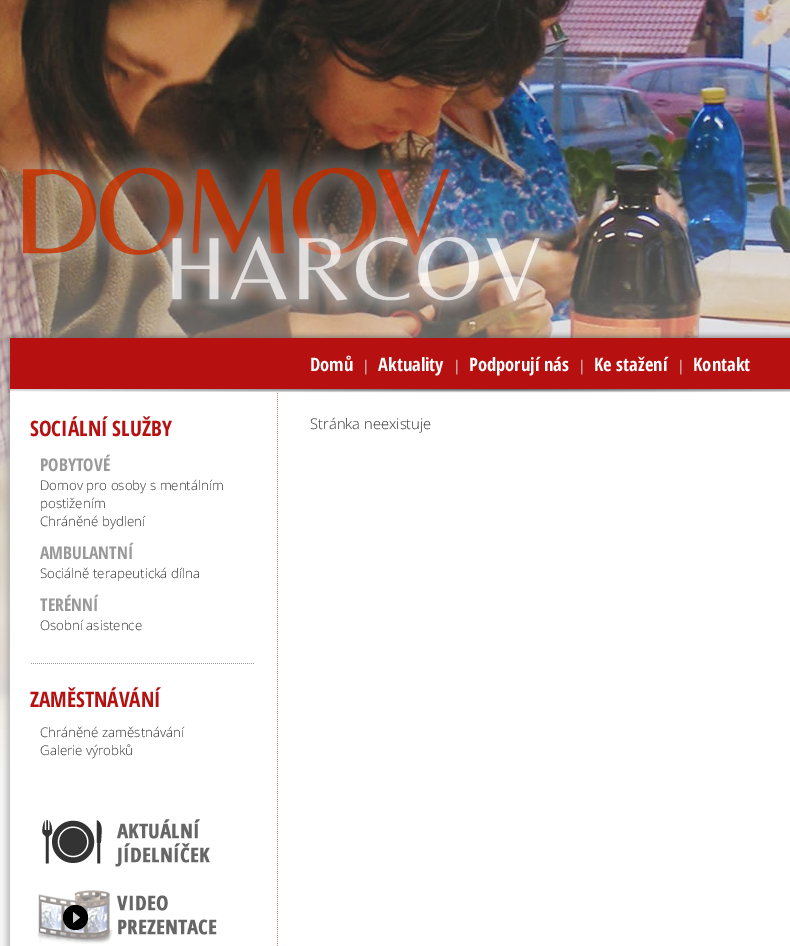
%!PS
<< /PageSize [790 946] >> setpagedevice
/rgb { dup -16 bitshift 255 div exch dup -8 bitshift 255 and 255 div exch 255 and 255 div setrgbcolor } def
/font { [ exch dup neg 0 0 3 -1 roll 0 0 ] selectfont } def
/text { moveto show } def
/picture { 5 dict begin { /h /w /y /x /name } { exch def } forall
  gsave x y translate w h scale
  w h 8 [w 0 0 h 0 0] name (r) file false 3 colorimage grestore end } def
0 946 translate 1 -1 scale
4 setmiterlimit
/s1 { /OpenSansCondensed-Bold 18.5 font 16#FFFFFF rgb } def
/s2 { /OpenSansCondensed-Bold 14.75 font 16#CB9A9A rgb } def
/s3 { /OpenSansCondensed-Bold 21.25 font 16#B61010 rgb } def
/s4 { /OpenSansCondensed-Bold 17.5 font 16#999999 rgb } def
/s5 { /OpenSans-Light 13.3 font 16#333333 rgb } def
/s6 { /OpenSans-Light 14.75 font 16#333333 rgb } def
16#F4F4F4 rgb
0 0 790 946 rectfill
(pic1.raw) 0 0 790 769 picture
(pic2.raw) 4 150 786 243 picture
s1
(Domů) 310 371 text
s2
(|) 362 371 text
s1
(Aktuality) 378 371 text
s2
(|) 453 371 text
s1
(Podporují nás) 469 371 text
s2
(|) 578 371 text
s1
(Ke stažení) 594 371 text
s2
(|) 677 371 text
s1
(Kontakt) 693 371 text
(pic3.raw) 3 393 787 553 picture
s3
(SOCIÁLNÍ SLUŽBY) 30 436 text
s4
(POBYTOVÉ) 40 471 text
s5
(Domov pro osoby s mentálním) 40 490 text
(postižením) 40 508 text
(Chráněné bydlení) 40 526 text
s4
(AMBULANTNÍ) 40 559 text
s5
(Sociálně terapeutická dílna) 40 578 text
s4
(TERÉNNÍ) 40 611 text
s5
(Osobní asistence) 40 630 text
(pic4.raw) 31 663 223 1 picture
s3
(ZAMĚSTNÁVÁNÍ) 30 707 text
s5
(Chráněné zaměstnávání) 40 737 text
(Galerie výrobků) 40 755 text
(pic5.raw) 42 819 168 48 picture
(pic6.raw) 37 890 180 54 picture
s6
(Stránka neexistuje) 310 429 text
showpage
